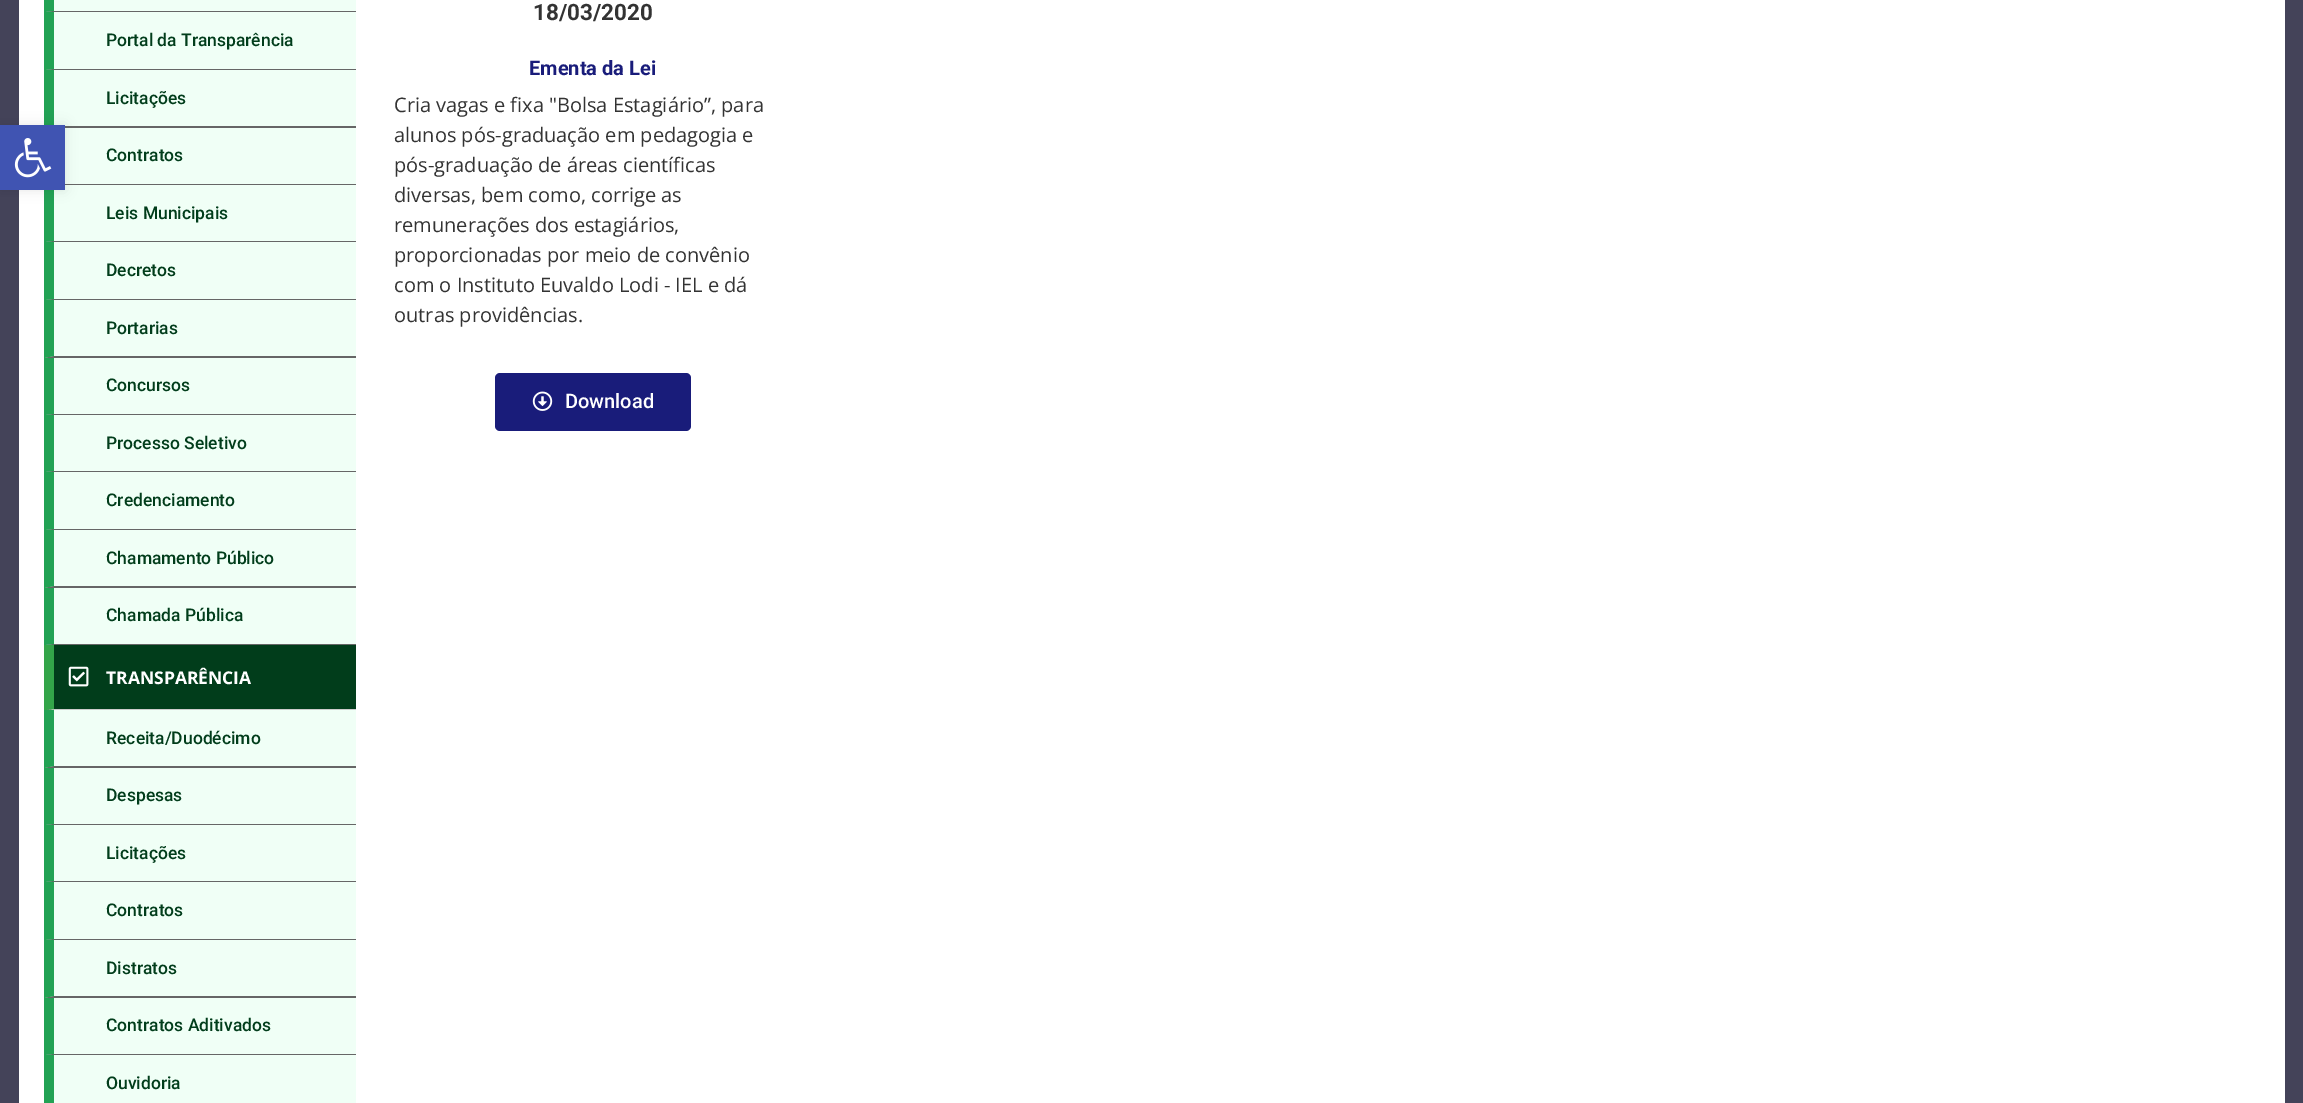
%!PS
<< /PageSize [2303 1103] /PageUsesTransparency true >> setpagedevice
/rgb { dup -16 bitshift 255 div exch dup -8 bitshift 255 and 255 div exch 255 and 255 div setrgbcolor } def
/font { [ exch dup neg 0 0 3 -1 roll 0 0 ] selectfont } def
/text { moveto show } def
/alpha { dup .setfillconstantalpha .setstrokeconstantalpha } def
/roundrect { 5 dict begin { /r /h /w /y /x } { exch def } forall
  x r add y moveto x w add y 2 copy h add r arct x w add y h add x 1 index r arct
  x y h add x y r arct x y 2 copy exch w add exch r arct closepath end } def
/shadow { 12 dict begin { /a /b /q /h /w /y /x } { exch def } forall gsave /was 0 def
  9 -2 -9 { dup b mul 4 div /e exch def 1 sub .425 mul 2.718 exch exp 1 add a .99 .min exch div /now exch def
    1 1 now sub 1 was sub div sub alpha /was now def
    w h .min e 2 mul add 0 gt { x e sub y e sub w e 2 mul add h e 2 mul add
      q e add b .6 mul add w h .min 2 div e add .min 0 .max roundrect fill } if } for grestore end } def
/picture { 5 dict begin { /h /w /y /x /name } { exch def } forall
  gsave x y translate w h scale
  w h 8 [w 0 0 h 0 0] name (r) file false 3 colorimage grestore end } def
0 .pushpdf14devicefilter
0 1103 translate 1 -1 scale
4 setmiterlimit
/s1 { /Roboto-Medium 17.5 font 16#013D1B rgb } def
/s2 { /OpenSans-Bold 17.5 font 16#FFFFFF rgb } def
/s3 { /Roboto-Bold 22.5 font 16#333333 rgb } def
/s4 { /Roboto-Bold 20 font 16#191C7A rgb } def
/s5 { /OpenSans-Regular 20 font 16#333333 rgb } def
/s6 { /Roboto-Medium 20 font 16#FFFFFF rgb } def
16#444359 rgb
0 0 2303 1103 rectfill
16#FFFFFF rgb
19 0 2266 1103 rectfill
16#F0FFF6 rgb
44 0 312 645 rectfill
16#666666 rgb
356 128 moveto 44 128 lineto 54 126 lineto 356 126 lineto closepath fill
16#22A254 rgb
44 128 moveto 44 70 lineto 54 70 lineto 54 126 lineto closepath fill
16#666666 rgb
356 185 moveto 44 185 lineto 54 184 lineto 356 184 lineto closepath fill
356 242 moveto 44 242 lineto 54 241 lineto 356 241 lineto closepath fill
16#22A254 rgb
44 242 moveto 44 185 lineto 54 185 lineto 54 241 lineto closepath fill
16#000000 rgb
0 125 65 65 0 6 0.1 shadow
16#4054B2 rgb
0 125 65 65 rectfill
(pic1.raw) 14 138 38 40 picture
16#013D1B rgb
44 645 312 65 rectfill
16#666666 rgb
356 12 moveto 44 12 lineto 54 11 lineto 356 11 lineto closepath fill
16#22A254 rgb
44 12 moveto 44 -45 lineto 54 -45 lineto 54 11 lineto closepath fill
16#666666 rgb
356 70 moveto 44 70 lineto 54 69 lineto 356 69 lineto closepath fill
16#22A254 rgb
44 70 moveto 44 12 lineto 54 12 lineto 54 69 lineto closepath fill
s1
(Portal da Transparência) 106 46 text
(Licitações) 106 104 text
(Contratos) 106 161 text
(Leis Municipais) 106 219 text
16#666666 rgb
356 300 moveto 44 300 lineto 54 299 lineto 356 299 lineto closepath fill
16#22A254 rgb
44 300 moveto 44 242 lineto 54 242 lineto 54 299 lineto closepath fill
s1
(Decretos) 106 276 text
16#666666 rgb
356 358 moveto 44 358 lineto 54 356 lineto 356 356 lineto closepath fill
16#22A254 rgb
44 358 moveto 44 300 lineto 54 300 lineto 54 356 lineto closepath fill
s1
(Portarias) 106 334 text
16#666666 rgb
356 415 moveto 44 415 lineto 54 414 lineto 356 414 lineto closepath fill
16#22A254 rgb
44 415 moveto 44 358 lineto 54 358 lineto 54 414 lineto closepath fill
s1
(Concursos) 106 391 text
16#666666 rgb
356 472 moveto 44 472 lineto 54 471 lineto 356 471 lineto closepath fill
16#22A254 rgb
44 472 moveto 44 415 lineto 54 415 lineto 54 471 lineto closepath fill
s1
(Processo Seletivo) 106 449 text
16#666666 rgb
356 530 moveto 44 530 lineto 54 529 lineto 356 529 lineto closepath fill
16#22A254 rgb
44 530 moveto 44 472 lineto 54 472 lineto 54 529 lineto closepath fill
s1
(Credenciamento) 106 506 text
16#666666 rgb
356 588 moveto 44 588 lineto 54 586 lineto 356 586 lineto closepath fill
16#22A254 rgb
44 588 moveto 44 530 lineto 54 530 lineto 54 586 lineto closepath fill
s1
(Chamamento Público) 106 564 text
16#666666 rgb
356 645 moveto 44 645 lineto 54 644 lineto 356 644 lineto closepath fill
16#22A254 rgb
44 645 moveto 44 588 lineto 54 588 lineto 54 644 lineto closepath fill
s1
(Chamada Pública) 106 621 text
16#CCCCCC rgb
356 710 moveto 44 710 lineto 54 709 lineto 356 709 lineto closepath fill
16#33A549 rgb
44 710 moveto 44 645 lineto 54 645 lineto 54 709 lineto closepath fill
(pic2.raw) 68 666 21 21 picture
s2
(TRANSPARÊNCIA) 106 684 text
16#F0FFF6 rgb
44 710 312 393 rectfill
16#666666 rgb
356 768 moveto 44 768 lineto 54 766 lineto 356 766 lineto closepath fill
16#22A254 rgb
44 768 moveto 44 710 lineto 54 710 lineto 54 766 lineto closepath fill
s1
(Receita/Duodécimo) 106 744 text
16#666666 rgb
356 825 moveto 44 825 lineto 54 824 lineto 356 824 lineto closepath fill
16#22A254 rgb
44 825 moveto 44 768 lineto 54 768 lineto 54 824 lineto closepath fill
s1
(Despesas) 106 801 text
16#666666 rgb
356 882 moveto 44 882 lineto 54 881 lineto 356 881 lineto closepath fill
16#22A254 rgb
44 882 moveto 44 825 lineto 54 825 lineto 54 881 lineto closepath fill
s1
(Licitações) 106 859 text
16#666666 rgb
356 940 moveto 44 940 lineto 54 939 lineto 356 939 lineto closepath fill
16#22A254 rgb
44 940 moveto 44 882 lineto 54 882 lineto 54 939 lineto closepath fill
s1
(Contratos) 106 916 text
16#666666 rgb
356 998 moveto 44 998 lineto 54 996 lineto 356 996 lineto closepath fill
16#22A254 rgb
44 998 moveto 44 940 lineto 54 940 lineto 54 996 lineto closepath fill
s1
(Distratos) 106 974 text
16#666666 rgb
356 1055 moveto 44 1055 lineto 54 1054 lineto 356 1054 lineto closepath fill
16#22A254 rgb
44 1055 moveto 44 998 lineto 54 998 lineto 54 1054 lineto closepath fill
s1
(Contratos Aditivados) 106 1031 text
16#22A254 rgb
44 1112 moveto 44 1055 lineto 54 1055 lineto 54 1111 lineto closepath fill
s1
(Ouvidoria) 106 1089 text
s3
(18/03/2020) 533 20 text
s4
(Ementa da Lei) 529 75 text
s5
(Cria vagas e fixa "Bolsa Estagiário”, para) 394 112 text
(alunos pós-graduação em pedagogia e) 394 142 text
(pós-graduação de áreas científicas) 394 172 text
(diversas, bem como, corrige as) 394 202 text
(remunerações dos estagiários,) 394 232 text
(proporcionadas por meio de convênio) 394 262 text
(com o Instituto Euvaldo Lodi - IEL e dá) 394 292 text
(outras providências.) 394 322 text
16#191C7A rgb
495 373 196 58 5 roundrect fill
(pic3.raw) 532 391 21 20 picture
s6
(Download) 565 408 text
.poppdf14devicefilter showpage
